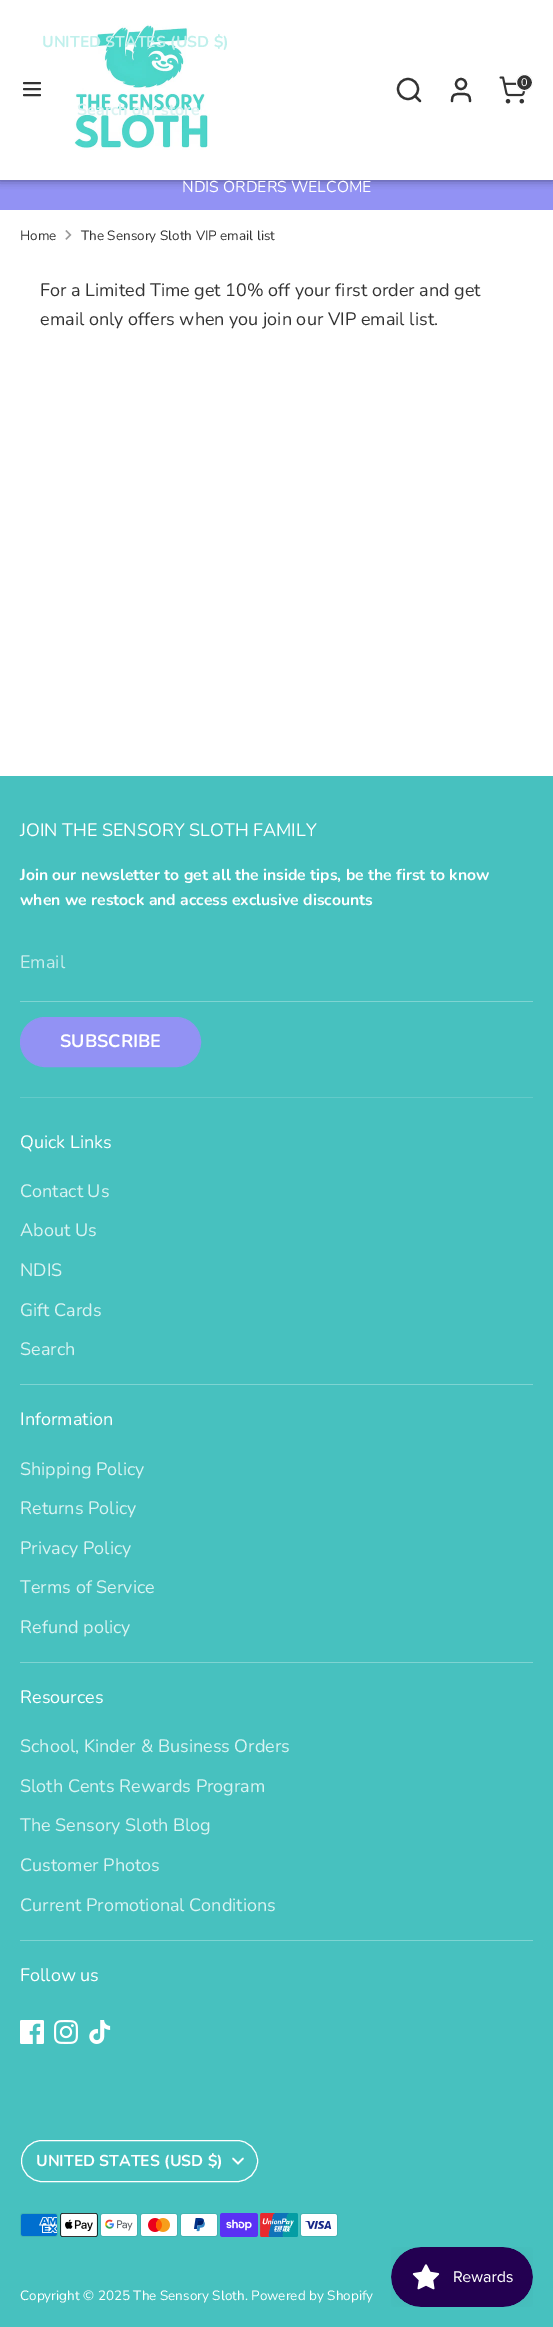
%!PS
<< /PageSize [553 2327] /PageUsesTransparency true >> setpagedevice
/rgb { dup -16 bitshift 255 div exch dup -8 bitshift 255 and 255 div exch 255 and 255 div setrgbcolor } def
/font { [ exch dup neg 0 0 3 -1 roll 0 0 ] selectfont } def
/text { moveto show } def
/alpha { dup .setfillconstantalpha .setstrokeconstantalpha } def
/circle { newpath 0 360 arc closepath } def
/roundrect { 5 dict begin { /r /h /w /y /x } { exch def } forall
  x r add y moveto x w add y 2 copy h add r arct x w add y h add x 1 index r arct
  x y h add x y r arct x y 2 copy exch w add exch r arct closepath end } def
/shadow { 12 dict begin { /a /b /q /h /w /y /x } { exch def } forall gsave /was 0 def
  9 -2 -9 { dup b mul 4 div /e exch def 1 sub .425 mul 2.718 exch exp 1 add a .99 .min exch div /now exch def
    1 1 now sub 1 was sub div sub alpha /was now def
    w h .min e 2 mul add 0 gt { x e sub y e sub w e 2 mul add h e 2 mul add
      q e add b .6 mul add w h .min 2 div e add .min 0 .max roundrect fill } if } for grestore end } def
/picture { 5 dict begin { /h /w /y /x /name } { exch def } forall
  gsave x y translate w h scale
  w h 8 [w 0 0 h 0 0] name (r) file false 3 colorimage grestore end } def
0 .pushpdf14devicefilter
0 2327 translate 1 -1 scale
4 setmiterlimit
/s1 { /Nunito-Bold 15.75 font 16#C0F0EC rgb } def
/s2 { /Nunito-Bold 16 font 16#DAF3F2 rgb } def
/s3 { /Nunito-ExtraLight 15.75 font 16#FFFFFF rgb } def
/s4 { /Nunito-ExtraLight 11 font 16#FFFFFF rgb } def
/s5 { /Nunito-ExtraLight 13.5 font 16#333333 rgb } def
/s6 { /Nunito-ExtraLight 18 font 16#333333 rgb } def
/s7 { /Nunito-ExtraLight 18 font 16#FFFFFF rgb } def
/s8 { /Nunito-Bold 15.75 font 16#FFFFFF rgb } def
/s9 { /Nunito-ExtraLight 18 font 16#C8ECEC rgb } def
/s10 { /Nunito-Bold 18 font 16#FFFFFF rgb } def
/s11 { /Nunito-ExtraLight 18 font 16#DAF3F2 rgb } def
/s12 { /Nunito-ExtraLight 13.5 font 16#FFFFFF rgb } def
16#FFFFFF rgb
0 0 553 2327 rectfill
16#9292F4 rgb
0 180 553 30 rectfill
16#000000 rgb
0 -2 553 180 0 5 0.75 shadow
16#FFFFFF rgb
0 0 553 180 rectfill
(pic1.raw) 74 24 136 126 picture
s1
(UNITED STATES \(USD $\)) 42 47 text
s2
(Search our store) 77 115 text
s3
(NDIS ORDERS WELCOME) 182 192 text
16#333333 rgb
2 setlinewidth
1 setlinecap
1 setlinejoin
24 89 moveto 40 89 lineto 24 83 moveto 40 83 lineto 24 95 moveto 40 95 lineto stroke
2.2 setlinewidth
0 setlinecap
0 setlinejoin
408 89 10 circle stroke
1 setlinecap
1 setlinejoin
420 101 moveto 415 96 lineto 470 101 moveto 470 94 467.5 94 461 94 curveto 454.5 94 452 94 452 101 curveto stroke
0 setlinecap
0 setlinejoin
461 84 5 circle stroke
(pic2.raw) 499 76 27 28 picture
524.5 82.5 8 circle gsave fill grestore
16#FFFFFF rgb
1 setlinewidth
stroke
s4
(0) 521 86 text
s5
(Home) 20 240 text
(pic3.raw) 65 230 7 10 picture
(The Sensory Sloth VIP email list) 81 240 text
s6
(For a Limited Time get 10% off your first order and get) 40 296 text
(email only offers when you join our VIP email list.) 40 325 text
16#47C1BF rgb
0 776 553 1551 rectfill
s7
(JOIN THE SENSORY SLOTH FAMILY) 20 836 text
s8
(Join our newsletter to get all the inside tips, be the first to know) 20 880 text
(when we restock and access exclusive discounts) 20 905 text
16#7ED4D2 rgb
20 1001 513 1 rectfill
s9
(Email) 20 968 text
16#9292F4 rgb
20.5 1017.5 180 49 24.5 roundrect stroke
21 1018 179 48 24 roundrect fill
s10
(SUBSCRIBE) 60 1047 text
16#63CAC9 rgb
20 1097 513 1 rectfill
16#7ED4D2 rgb
20 1384 513 1 rectfill
s7
(Quick Links) 20 1148 text
s11
(Contact Us) 20 1197 text
(About Us) 20 1236 text
(NDIS) 20 1276 text
(Gift Cards) 20 1316 text
(Search) 20 1355 text
16#7ED4D2 rgb
20 1662 513 1 rectfill
s7
(Information) 20 1425 text
s11
(Shipping Policy) 20 1475 text
(Returns Policy) 20 1514 text
(Privacy Policy) 20 1554 text
(Terms of Service) 20 1593 text
(Refund policy) 20 1633 text
16#7ED4D2 rgb
20 1940 513 1 rectfill
s7
(Resources) 20 1703 text
s11
(School, Kinder & Business Orders) 20 1752 text
(Sloth Cents Rewards Program) 20 1792 text
(The Sensory Sloth Blog) 20 1831 text
(Customer Photos) 20 1871 text
(Current Promotional Conditions) 20 1911 text
s7
(Follow us) 20 1981 text
(pic4.raw) 20 2020 24 24 picture
(pic5.raw) 54 2020 24 24 picture
(pic6.raw) 89 2020 22 24 picture
21.5 2140.5 236 41 20.5 roundrect stroke
s8
(UNITED STATES \(USD $\)) 36 2166 text
1.7 setlinewidth
1 setlinecap
233 2158.5 moveto 238 2163.5 lineto 243 2158.5 lineto stroke
(pic7.raw) 20 2213 38 24 picture
(pic8.raw) 60 2213 38 24 picture
(pic9.raw) 100 2213 38 24 picture
(pic10.raw) 140 2213 38 24 picture
(pic11.raw) 180 2213 38 24 picture
(pic12.raw) 220 2213 38 24 picture
(pic13.raw) 260 2213 38 24 picture
(pic14.raw) 300 2213 38 24 picture
s12
(Copyright © 2025 The Sensory Sloth. Powered by Shopify) 20 2300 text
(pic15.raw) 391 2247 142 60 picture
.poppdf14devicefilter showpage
